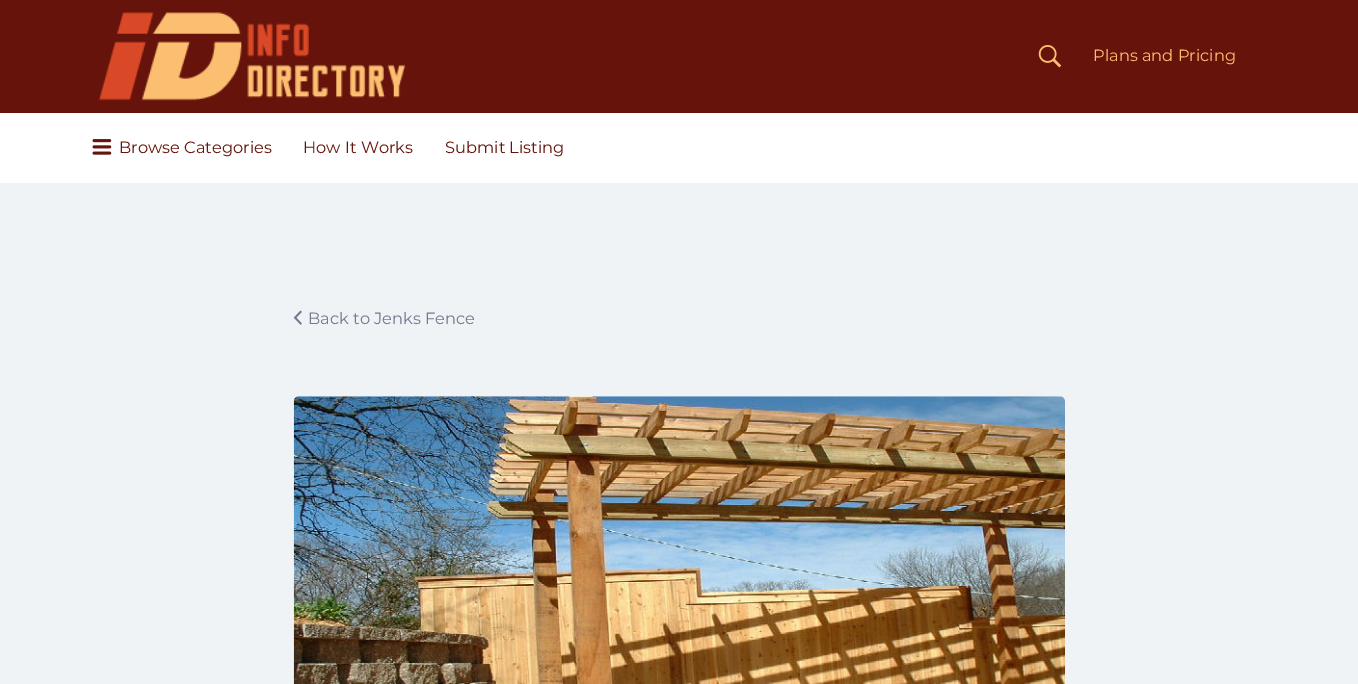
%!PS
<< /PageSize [1358 684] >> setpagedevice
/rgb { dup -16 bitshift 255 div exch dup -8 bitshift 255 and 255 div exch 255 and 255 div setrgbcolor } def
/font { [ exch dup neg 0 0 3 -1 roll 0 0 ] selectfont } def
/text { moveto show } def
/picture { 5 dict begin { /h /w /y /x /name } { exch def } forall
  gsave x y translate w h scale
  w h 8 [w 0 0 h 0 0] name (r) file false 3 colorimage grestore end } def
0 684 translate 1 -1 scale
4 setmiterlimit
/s1 { /Montserrat-Regular 16.25 font 16#FCBE71 rgb } def
/s2 { /Montserrat-Regular 16.25 font 16#66140B rgb } def
/s3 { /Montserrat-Regular 16.25 font 16#717A8F rgb } def
16#F0F3F6 rgb
0 0 1358 684 rectfill
16#66140B rgb
0 0 1358 113 rectfill
(pic1.raw) 98 12 308 89 picture
(pic2.raw) 1038 45 24 23 picture
s1
(Plans and Pricing) 1093 61 text
16#FFFFFF rgb
0 113 1358 70 rectfill
(pic3.raw) 92 139 20 16 picture
s2
(Browse Categories) 119 153 text
(How It Works) 303 153 text
(Submit Listing) 445 153 text
(pic4.raw) 293 310 9 15 picture
s3
(Back to Jenks Fence) 308 324 text
(pic5.raw) 293 396 772 288 picture
showpage
